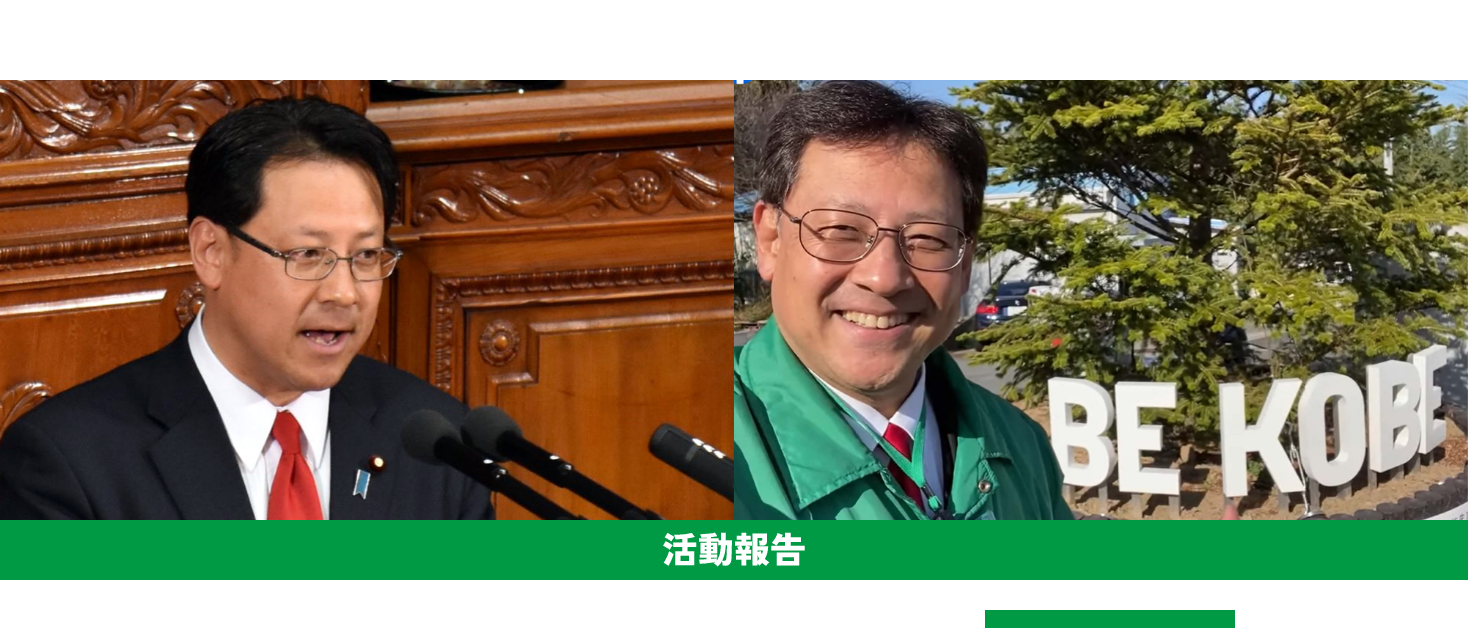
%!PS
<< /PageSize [1468 628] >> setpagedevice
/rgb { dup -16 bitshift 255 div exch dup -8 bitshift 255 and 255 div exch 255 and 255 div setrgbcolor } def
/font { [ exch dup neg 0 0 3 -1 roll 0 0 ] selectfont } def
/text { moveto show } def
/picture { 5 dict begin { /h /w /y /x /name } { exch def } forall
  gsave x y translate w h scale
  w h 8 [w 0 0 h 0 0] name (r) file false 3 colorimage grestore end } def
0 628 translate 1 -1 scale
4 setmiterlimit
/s1 { /ZenKakuGothicAntique-Black 36 font 16#FFFFFF rgb } def
16#FFFFFF rgb
0 0 1468 628 rectfill
(pic1.raw) 0 80 1468 440 picture
16#009A44 rgb
0 520 1468 60 rectfill
s1
(活動報告) 662 563 text
16#009A44 rgb
985 610 250 18 rectfill
showpage
